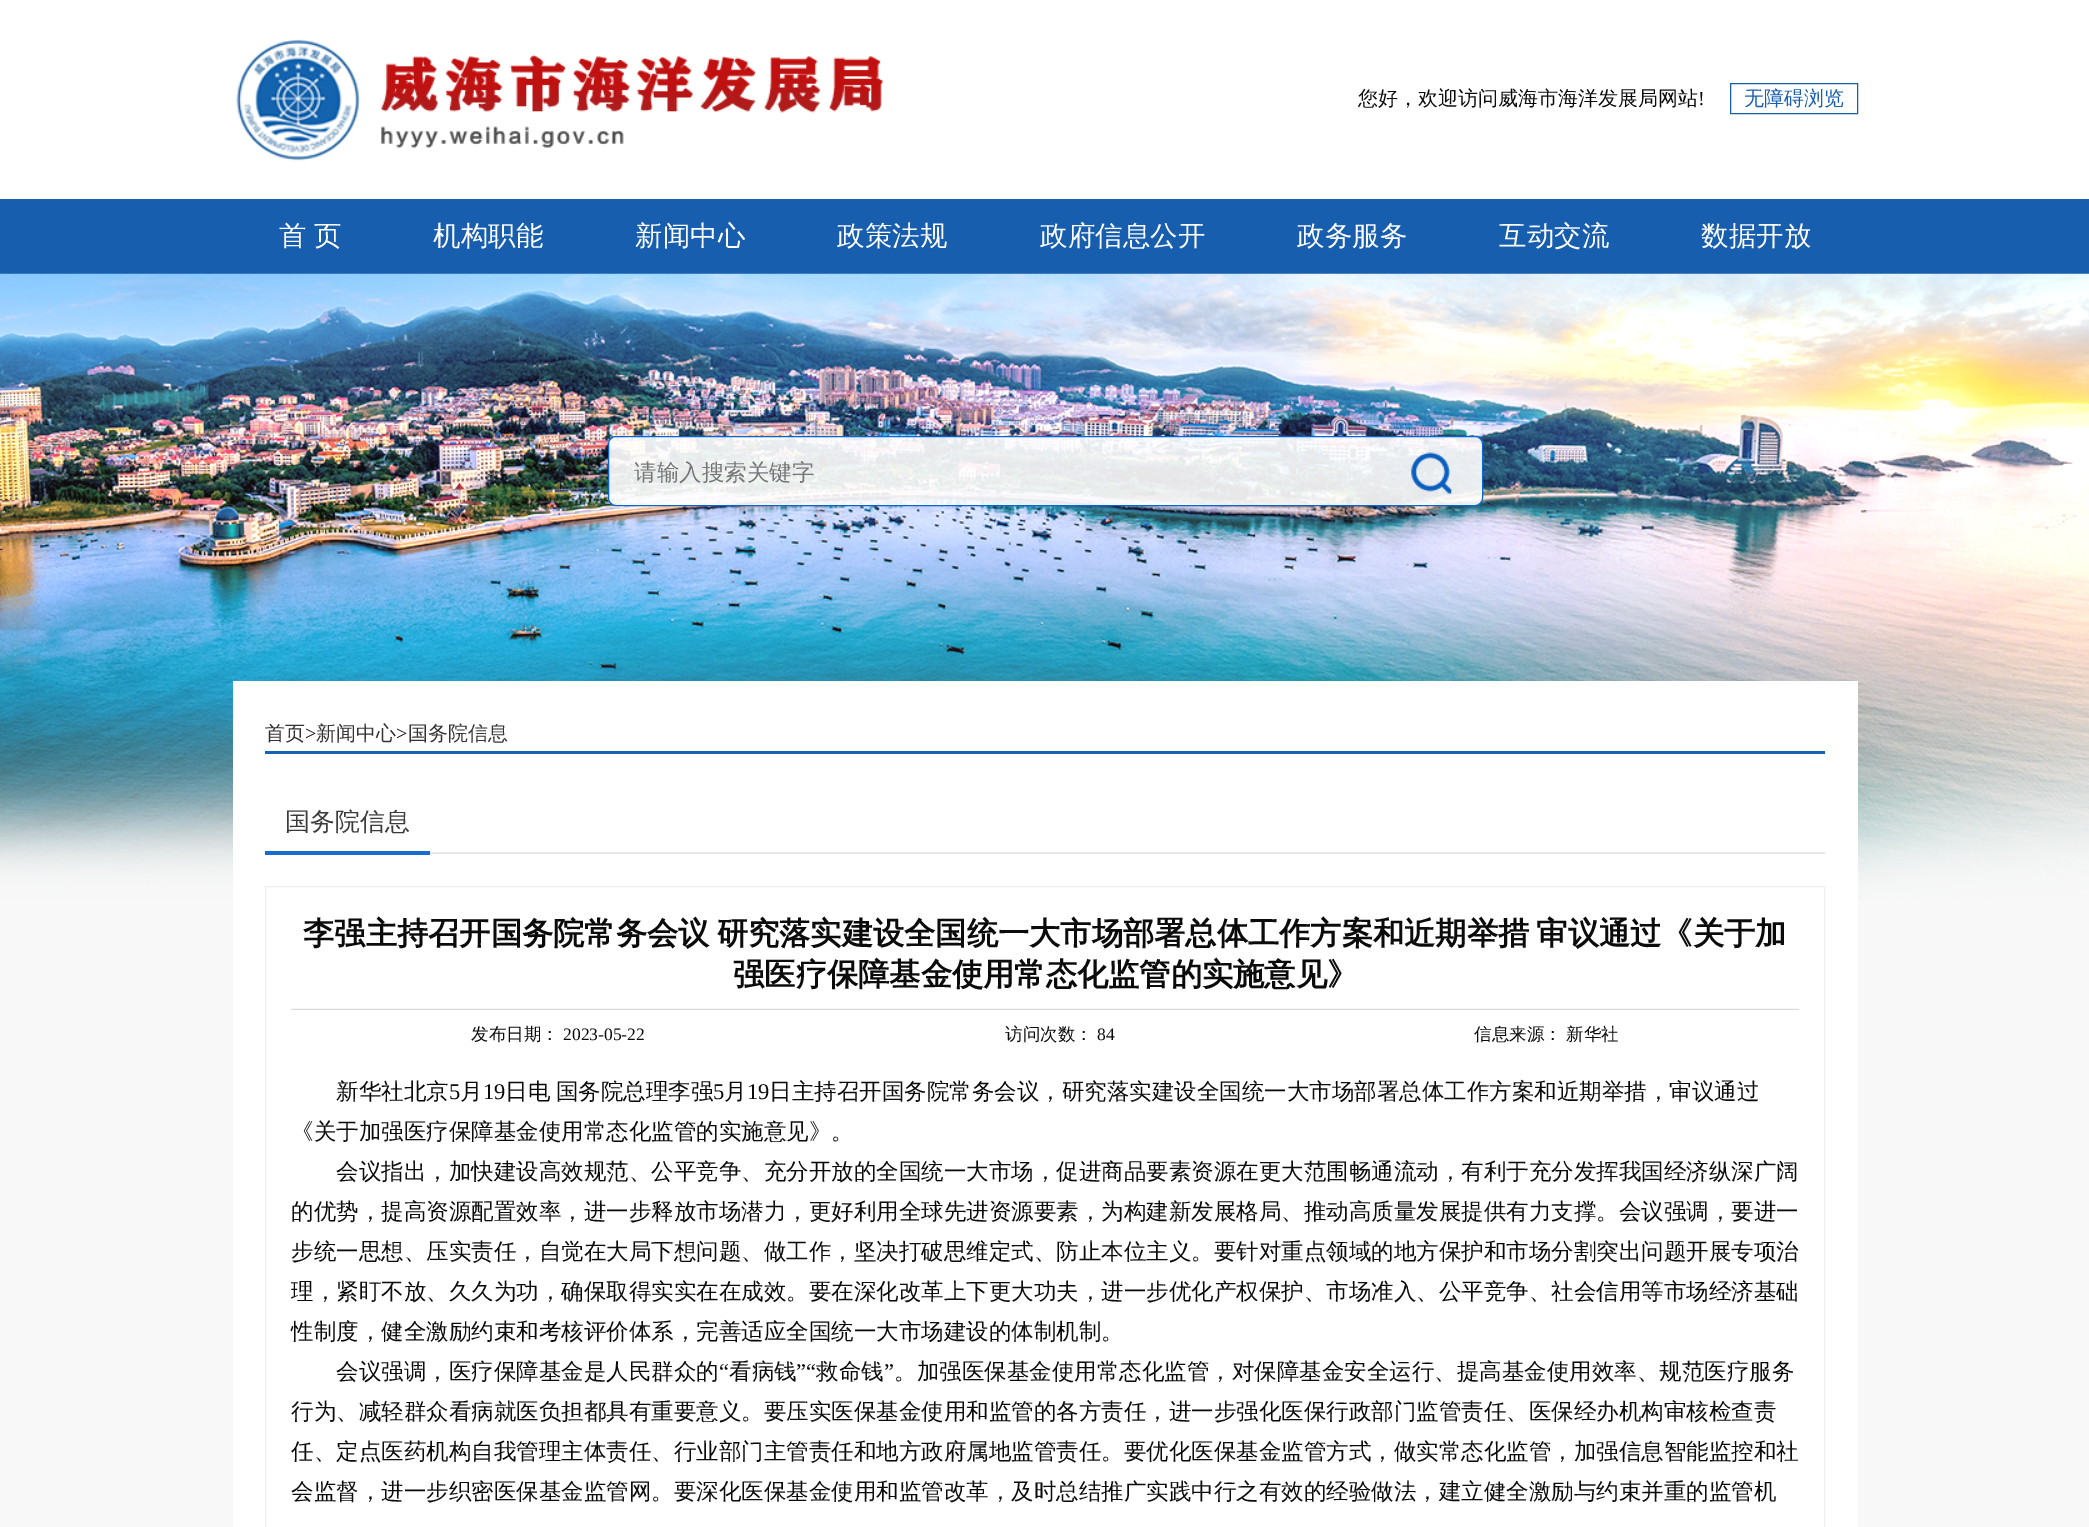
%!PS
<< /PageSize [2089 1527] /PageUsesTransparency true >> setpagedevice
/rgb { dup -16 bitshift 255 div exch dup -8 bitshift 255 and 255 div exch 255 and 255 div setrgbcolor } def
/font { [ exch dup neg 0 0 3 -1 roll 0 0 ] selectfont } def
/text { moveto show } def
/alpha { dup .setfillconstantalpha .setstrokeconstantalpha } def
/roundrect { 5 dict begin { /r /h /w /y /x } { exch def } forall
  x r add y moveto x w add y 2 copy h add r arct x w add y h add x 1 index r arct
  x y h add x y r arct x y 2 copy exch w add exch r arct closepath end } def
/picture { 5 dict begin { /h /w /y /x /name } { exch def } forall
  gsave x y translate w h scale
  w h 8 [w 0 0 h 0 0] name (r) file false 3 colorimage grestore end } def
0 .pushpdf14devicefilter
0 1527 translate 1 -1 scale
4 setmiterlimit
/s1 { /WenQuanYiZenHei-Medium 20 font 16#0B0B0B rgb } def
/s2 { /LiberationSerif-Regular 20 font 16#0B0B0B rgb } def
/s3 { /WenQuanYiZenHei-Medium 20 font 16#175EAE rgb } def
/s4 { /WenQuanYiZenHei-Medium 27.5 font 16#FFFFFF rgb } def
/s5 { /WenQuanYiZenHei-Medium 22.5 font 16#757575 rgb } def
/s6 { /WenQuanYiZenHei-Medium 20 font 16#333333 rgb } def
/s7 { /WenQuanYiZenHei-Medium 25 font 16#3B3B3B rgb } def
/s8 { /WenQuanYiZenHei-Bold 31.25 font 16#0B0B0B rgb } def
/s9 { /WenQuanYiZenHei-Medium 17.5 font 16#0B0B0B rgb } def
/s10 { /LiberationSerif-Regular 17.5 font 16#0B0B0B rgb } def
/s11 { /WenQuanYiZenHei-Medium 22.5 font 16#0B0B0B rgb } def
/s12 { /LiberationSerif-Regular 22.5 font 16#0B0B0B rgb } def
16#F8F8F8 rgb
0 0 2089 1527 rectfill
16#FFFFFF rgb
0 0 2089 199 rectfill
(pic1.raw) 236 39 647 122 picture
s1
(您好，欢迎访问威海市海洋发展局网站) 1358 105 text
s2
(!) 1698 105 text
16#175EAE rgb
1730.5 83.5 127 30 rectstroke
s3
(无障碍浏览) 1744 105 text
0 199 2089 75 rectfill
/WenQuanYiZenHei-Medium 27.5 font
16#FFFFFF rgb
279 245 moveto -1 0 32 (首 页) widthshow
(机构职能) 433 245 text
(新闻中心) 635 245 text
(政策法规) 837 245 text
(政府信息公开) 1040 245 text
(政务服务) 1297 245 text
(互动交流) 1499 245 text
(数据开放) 1701 245 text
(pic2.raw) 0 273 2089 626 picture
0.9 alpha
608.5 436.5 874 69 7.5 roundrect fill
1 alpha
16#0766D0 rgb
608.5 436.5 874 69 7.5 roundrect stroke
s5
(请输入搜索关键字) 634 480 text
(pic3.raw) 1411 452 41 42 picture
16#FFFFFF rgb
233 681 1625 846 rectfill
16#1761B5 rgb
265 751 1560 3 rectfill
s6
(首页) 265 740 text
s2
(>) 305 740 text
s6
(新闻中心) 316 740 text
s2
(>) 396 740 text
s6
(国务院信息) 408 740 text
s7
(国务院信息) 285 830 text
(pic4.raw) 430 852 1395 2 picture
16#176DCF rgb
265 851 165 4 rectfill
16#EFEFEF rgb
265.5 886.5 1559 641 rectstroke
/WenQuanYiZenHei-Bold 31.25 font
16#0B0B0B rgb
303 944 moveto -2 0 32 (李强主持召开国务院常务会议 研究落实建设全国统一大市场部署总体工作方案和近期举措 审议通过《关于加) widthshow
(强医疗保障基金使用常态化监管的实施意见》) 733 985 text
(pic5.raw) 291 1008 1508 2 picture
s9
(发布日期：) 471 1040 text
s10
(2023-05-22) 563 1040 text
s9
(访问次数：) 1005 1040 text
s10
(84) 1097 1040 text
s9
(信息来源：) 1474 1040 text
(新华社) 1566 1040 text
s11
(新华社北京) 336 1099 text
s12
(5) 449 1099 text
s11
(月) 460 1099 text
s12
(19) 483 1099 text
/WenQuanYiZenHei-Medium 22.5 font
505 1099 moveto -1 0 32 (日电 国务院总理李强) widthshow
s12
(5) 713 1099 text
s11
(月) 724 1099 text
s12
(19) 747 1099 text
s11
(日主持召开国务院常务会议，研究落实建设全国统一大市场部署总体工作方案和近期举措，审议通过) 769 1099 text
(《关于加强医疗保障基金使用常态化监管的实施意见》。) 291 1139 text
(会议指出，加快建设高效规范、公平竞争、充分开放的全国统一大市场，促进商品要素资源在更大范围畅通流动，有利于充分发挥我国经济纵深广阔) 336 1179 text
(的优势，提高资源配置效率，进一步释放市场潜力，更好利用全球先进资源要素，为构建新发展格局、推动高质量发展提供有力支撑。会议强调，要进一) 291 1219 text
(步统一思想、压实责任，自觉在大局下想问题、做工作，坚决打破思维定式、防止本位主义。要针对重点领域的地方保护和市场分割突出问题开展专项治) 291 1259 text
(理，紧盯不放、久久为功，确保取得实实在在成效。要在深化改革上下更大功夫，进一步优化产权保护、市场准入、公平竞争、社会信用等市场经济基础) 291 1299 text
(性制度，健全激励约束和考核评价体系，完善适应全国统一大市场建设的体制机制。) 291 1339 text
(会议强调，医疗保障基金是人民群众的) 336 1379 text
s12
(“) 719 1379 text
s11
(看病钱) 729 1379 text
s12
(”“) 796 1379 text
s11
(救命钱) 816 1379 text
s12
(”) 884 1379 text
s11
(。加强医保基金使用常态化监管，对保障基金安全运行、提高基金使用效率、规范医疗服务) 894 1379 text
(行为、减轻群众看病就医负担都具有重要意义。要压实医保基金使用和监管的各方责任，进一步强化医保行政部门监管责任、医保经办机构审核检查责) 291 1419 text
(任、定点医药机构自我管理主体责任、行业部门主管责任和地方政府属地监管责任。要优化医保基金监管方式，做实常态化监管，加强信息智能监控和社) 291 1459 text
(会监督，进一步织密医保基金监管网。要深化医保基金使用和监管改革，及时总结推广实践中行之有效的经验做法，建立健全激励与约束并重的监管机) 291 1499 text
.poppdf14devicefilter showpage
